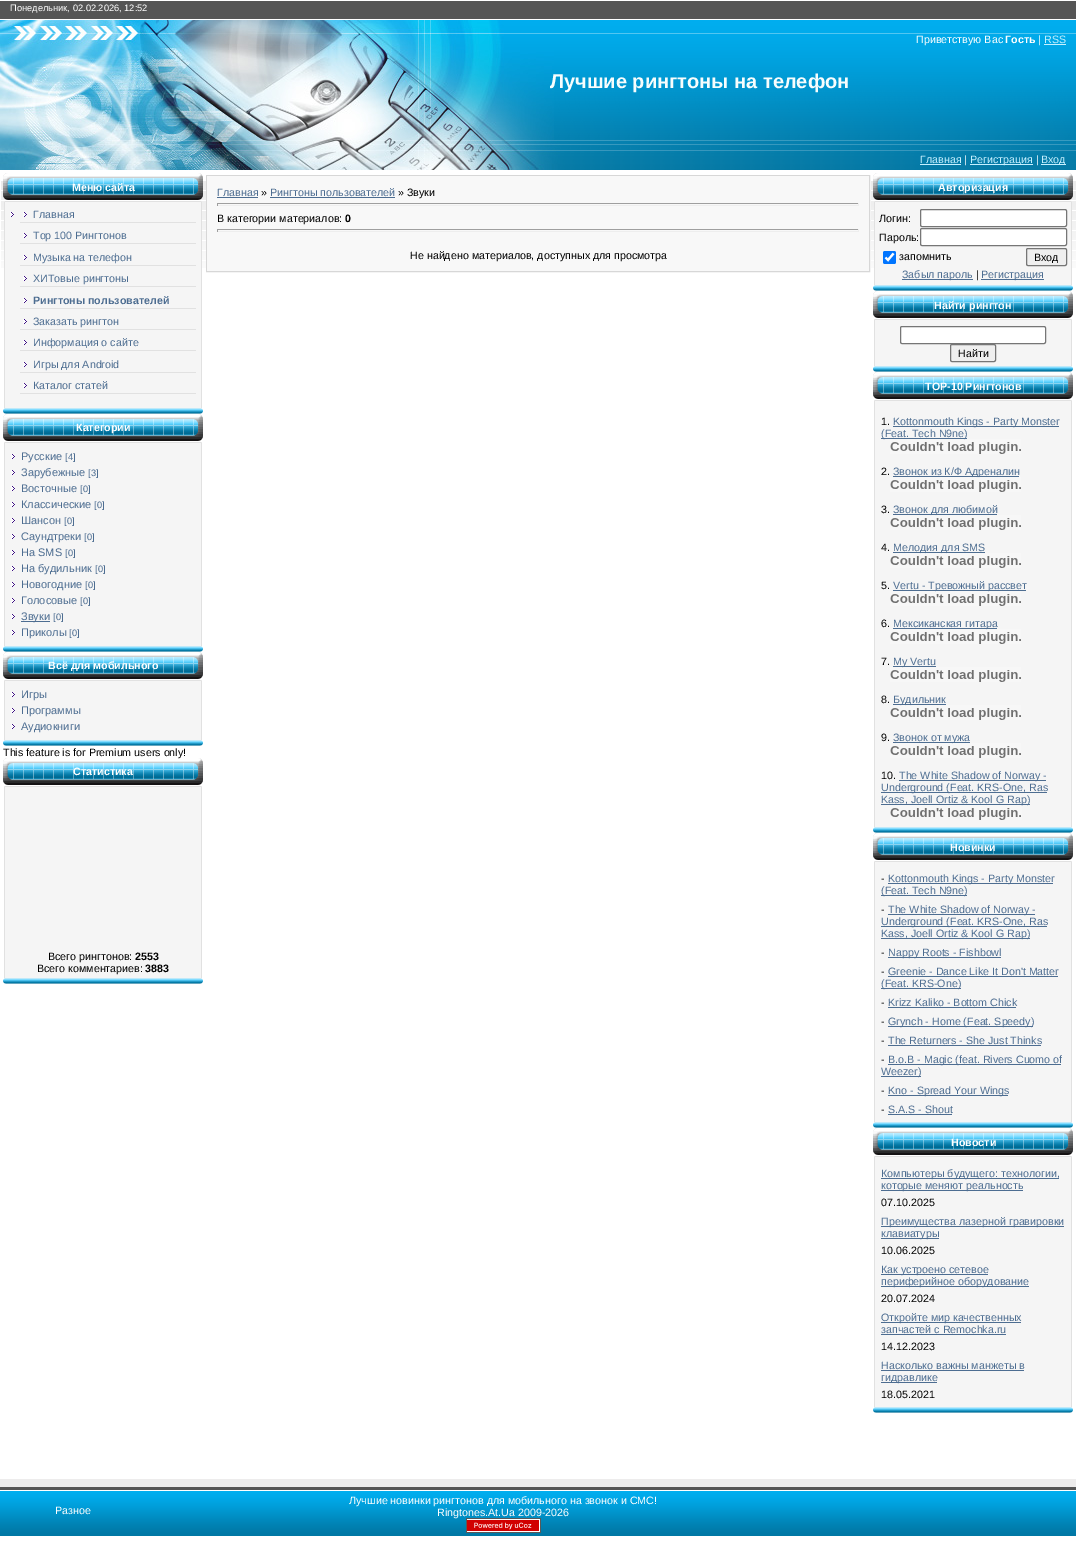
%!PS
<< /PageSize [1076 1558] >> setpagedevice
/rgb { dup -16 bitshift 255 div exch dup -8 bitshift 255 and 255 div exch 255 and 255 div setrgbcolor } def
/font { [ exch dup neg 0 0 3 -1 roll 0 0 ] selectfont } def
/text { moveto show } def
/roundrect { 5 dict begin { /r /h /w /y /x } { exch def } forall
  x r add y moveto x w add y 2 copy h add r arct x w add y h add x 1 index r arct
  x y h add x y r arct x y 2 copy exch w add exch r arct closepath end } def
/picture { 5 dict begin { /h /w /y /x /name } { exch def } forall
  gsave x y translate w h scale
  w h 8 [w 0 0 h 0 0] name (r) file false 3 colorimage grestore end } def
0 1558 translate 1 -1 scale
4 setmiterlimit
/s1 { /LiberationSans-Regular 9.3 font 16#FFFFFF rgb } def
/s2 { /LiberationSans-Regular 10.7 font 16#FFFFFF rgb } def
/s3 { /LiberationSans-Bold 10.7 font 16#FFFFFF rgb } def
/s4 { /LiberationSans-Regular 10.7 font 16#C5F0FF rgb } def
/s5 { /LiberationSans-Bold 20 font 16#F7FDFD rgb } def
/s6 { /LiberationSans-Regular 10.7 font 16#4D6D91 rgb } def
/s7 { /LiberationSans-Bold 10.7 font 16#4D6D91 rgb } def
/s8 { /LiberationSans-Regular 11 font 16#4D6D91 rgb } def
/s9 { /LiberationSans-Regular 9.3 font 16#4D6D91 rgb } def
/s10 { /LiberationSans-Regular 10.7 font 16#000000 rgb } def
/s11 { /LiberationSans-Bold 10.7 font 16#000000 rgb } def
16#FFFFFF rgb
0 0 1076 1558 rectfill
(pic1.raw) 0 1 1076 267 picture
s1
(Понедельник, 02.02.2026, 12:52) 10 11 text
(pic2.raw) 0 20 504 30 picture
s2
(Приветствую Вас) 916 43 text
s3
(Гость) 1005 43 text
s2
(|) 1038 43 text
s4
(RSS) 1044 43 text
1044 44 22 1 rectfill
(pic3.raw) 0 50 554 90 picture
s5
(Лучшие рингтоны на телефон) 550 88 text
(pic4.raw) 0 140 560 30 picture
s4
(Главная) 920 163 text
920 164 41 1 rectfill
s2
(|) 964 163 text
16#C5F0FF rgb
970 164 63 1 rectfill
(Регистрация) 970 163 text
s2
(|) 1036 163 text
16#C5F0FF rgb
1041 164 25 1 rectfill
(Вход) 1041 163 text
(pic5.raw) 3 173 200 30 picture
s3
(Меню сайта) 72 191 text
(pic6.raw) 3 203 200 211 picture
(pic7.raw) 10 212 4 5 picture
(pic7.raw) 23 212 4 5 picture
16#E1E1E1 rgb
20 222 176 1 rectfill
s6
(Главная) 33 218 text
(pic7.raw) 23 233 4 5 picture
16#E1E1E1 rgb
20 243 176 1 rectfill
s6
(Top 100 Рингтонов) 33 239 text
(pic7.raw) 23 255 4 5 picture
16#E1E1E1 rgb
20 265 176 1 rectfill
s6
(Музыка на телефон) 33 261 text
(pic7.raw) 23 276 4 5 picture
16#E1E1E1 rgb
20 286 176 1 rectfill
s6
(ХИТовые рингтоны) 33 282 text
(pic7.raw) 23 298 4 5 picture
16#E1E1E1 rgb
20 308 176 1 rectfill
s7
(Рингтоны пользователей) 33 304 text
(pic7.raw) 23 319 4 5 picture
16#E1E1E1 rgb
20 329 176 1 rectfill
s6
(Заказать рингтон) 33 325 text
(pic7.raw) 23 340 4 5 picture
16#E1E1E1 rgb
20 350 176 1 rectfill
s6
(Информация о сайте) 33 346 text
(pic7.raw) 23 362 4 5 picture
16#E1E1E1 rgb
20 372 176 1 rectfill
s6
(Игры для Android) 33 368 text
(pic7.raw) 23 383 4 5 picture
16#E1E1E1 rgb
20 393 176 1 rectfill
s6
(Каталог статей) 33 389 text
(pic8.raw) 3 414 200 30 picture
s3
(Категории) 76 431 text
(pic9.raw) 3 444 200 208 picture
(pic7.raw) 11 454 4 5 picture
s8
(Русские) 21 460 text
s9
([4]) 65 460 text
(pic7.raw) 11 470 4 5 picture
s8
(Зарубежные) 21 476 text
s9
([3]) 88 476 text
(pic7.raw) 11 486 4 5 picture
s8
(Восточные) 21 492 text
s9
([0]) 80 492 text
(pic7.raw) 11 502 4 5 picture
s8
(Классические) 21 508 text
s9
([0]) 94 508 text
(pic7.raw) 11 518 4 5 picture
s8
(Шансон) 21 524 text
s9
([0]) 64 524 text
(pic7.raw) 11 534 4 5 picture
s8
(Саундтреки) 21 540 text
s9
([0]) 84 540 text
(pic7.raw) 11 550 4 5 picture
s8
(На SMS) 21 556 text
s9
([0]) 65 556 text
(pic7.raw) 11 566 4 5 picture
s8
(На будильник) 21 572 text
s9
([0]) 95 572 text
(pic7.raw) 11 582 4 5 picture
s8
(Новогодние) 21 588 text
s9
([0]) 85 588 text
(pic7.raw) 11 598 4 5 picture
s8
(Голосовые) 21 604 text
s9
([0]) 80 604 text
(pic7.raw) 11 614 4 5 picture
21 621 29 1 rectfill
s8
(Звуки) 21 620 text
s9
([0]) 53 620 text
(pic7.raw) 11 630 4 5 picture
s8
(Приколы) 21 636 text
s9
([0]) 69 636 text
(pic8.raw) 3 652 200 30 picture
s3
(Всё для мобильного) 48 669 text
(pic10.raw) 3 682 200 64 picture
(pic7.raw) 11 692 4 5 picture
s8
(Игры) 21 698 text
(pic7.raw) 11 708 4 5 picture
(Программы) 21 714 text
(pic7.raw) 11 724 4 5 picture
(Аудиокниги) 21 730 text
(pic8.raw) 3 758 200 30 picture
s10
(This feature is for Premium users only!) 3 756 text
s3
(Статистика) 73 775 text
(pic11.raw) 3 788 200 196 picture
s10
(Всего рингтонов:) 48 960 text
s11
(2553) 135 960 text
s10
(Всего комментариев:) 37 972 text
s11
(3883) 145 972 text
16#D7D7D7 rgb
206.5 175.5 663 96 rectstroke
16#F8F8F8 rgb
207 176 662 95 rectfill
s6
(Главная) 217 196 text
217 197 41 1 rectfill
s10
(») 261 196 text
s6
(Рингтоны пользователей) 270 196 text
270 197 125 1 rectfill
s10
(» Звуки) 398 196 text
16#9F9F9F rgb
217 203 642 1 rectfill
16#EEEEEE rgb
858 203 1 3 rectfill
217 205 642 1 rectfill
16#9F9F9F rgb
217 203 1 3 rectfill
s10
(В категории материалов:) 217 222 text
s11
(0) 345 222 text
16#9F9F9F rgb
217 229 642 1 rectfill
16#EEEEEE rgb
858 229 1 3 rectfill
217 231 642 1 rectfill
16#9F9F9F rgb
217 229 1 3 rectfill
s10
(Не найдено материалов, доступных для просмотра) 410 259 text
(pic5.raw) 873 173 200 30 picture
s3
(Авторизация) 938 191 text
(pic12.raw) 873 203 200 88 picture
s10
(Логин:) 879 222 text
16#FFFFFF rgb
920.5 209.5 146 17 1.5 roundrect gsave fill grestore
16#767676 rgb
stroke
s10
(Пароль:) 879 241 text
16#FFFFFF rgb
920.5 228.5 146 17 1.5 roundrect gsave fill grestore
16#767676 rgb
stroke
16#0075FF rgb
883 251 13 13 2 roundrect fill
16#FFFFFF rgb
2.1 setlinewidth
885.5 257.5 moveto 888 260 lineto 893.5 253.5 lineto stroke
s10
(запомнить) 899 260 text
16#EFEFEF rgb
1026.5 248.5 40 17 1.5 roundrect gsave fill grestore
16#767676 rgb
1 setlinewidth
stroke
s10
(Вход) 1034 261 text
16#4D6D91 rgb
902 279 71 1 rectfill
(Забыл пароль) 902 278 text
s10
(|) 976 278 text
16#4D6D91 rgb
981 279 63 1 rectfill
(Регистрация) 981 278 text
(pic8.raw) 873 291 200 30 picture
s3
(Найти рингтон) 934 309 text
(pic13.raw) 873 321 200 51 picture
900.5 326.5 145 17 1.5 roundrect gsave fill grestore
16#767676 rgb
stroke
16#EFEFEF rgb
950.5 344.5 45 17 1.5 roundrect gsave fill grestore
16#767676 rgb
stroke
s10
(Найти) 958 357 text
(pic8.raw) 873 372 200 30 picture
s3
(TOP-10 Рингтонов) 925 390 text
(pic14.raw) 873 402 200 431 picture
s10
(1.) 881 425 text
16#4D6D91 rgb
893 426 166 1 rectfill
(Kottonmouth Kings - Party Monster) 893 425 text
881 438 86 1 rectfill
(\(Feat. Tech N9ne\)) 881 437 text
(pic15.raw) 890 439 131 15 picture
s10
(2.) 881 475 text
16#4D6D91 rgb
893 476 126 1 rectfill
(Звонок из К/Ф Адреналин) 893 475 text
(pic16.raw) 890 477 131 15 picture
s10
(3.) 881 513 text
16#4D6D91 rgb
893 514 104 1 rectfill
(Звонок для любимой) 893 513 text
(pic17.raw) 890 515 131 15 picture
s10
(4.) 881 551 text
16#4D6D91 rgb
893 552 92 1 rectfill
(Мелодия для SMS) 893 551 text
(pic18.raw) 890 553 131 15 picture
s10
(5.) 881 589 text
16#4D6D91 rgb
893 590 133 1 rectfill
(Vertu - Тревожный рассвет) 893 589 text
(pic19.raw) 890 591 131 15 picture
s10
(6.) 881 627 text
16#4D6D91 rgb
893 628 104 1 rectfill
(Мексиканская гитара) 893 627 text
(pic20.raw) 890 629 131 15 picture
s10
(7.) 881 665 text
16#4D6D91 rgb
893 666 43 1 rectfill
(My Vertu) 893 665 text
(pic21.raw) 890 667 131 15 picture
s10
(8.) 881 703 text
16#4D6D91 rgb
893 704 53 1 rectfill
(Будильник) 893 703 text
(pic22.raw) 890 705 131 15 picture
s10
(9.) 881 741 text
16#4D6D91 rgb
893 742 77 1 rectfill
(Звонок от мужа) 893 741 text
(pic23.raw) 890 743 131 15 picture
s10
(10.) 881 779 text
16#4D6D91 rgb
899 780 147 1 rectfill
(The White Shadow of Norway -) 899 779 text
881 792 166 1 rectfill
(Underground \(Feat. KRS-One, Ras) 881 791 text
881 804 149 1 rectfill
(Kass, Joell Ortiz & Kool G Rap\)) 881 803 text
(pic24.raw) 890 805 132 15 picture
(pic8.raw) 873 833 200 30 picture
s3
(Новинки) 950 851 text
(pic25.raw) 873 863 200 265 picture
s10
(-) 881 882 text
16#4D6D91 rgb
888 883 165 1 rectfill
(Kottonmouth Kings - Party Monster) 888 882 text
881 895 86 1 rectfill
(\(Feat. Tech N9ne\)) 881 894 text
s10
(-) 881 913 text
16#4D6D91 rgb
888 914 147 1 rectfill
(The White Shadow of Norway -) 888 913 text
881 926 166 1 rectfill
(Underground \(Feat. KRS-One, Ras) 881 925 text
881 938 149 1 rectfill
(Kass, Joell Ortiz & Kool G Rap\)) 881 937 text
s10
(-) 881 956 text
16#4D6D91 rgb
888 957 113 1 rectfill
(Nappy Roots - Fishbowl) 888 956 text
s10
(-) 881 975 text
s6
(Greenie - Dance Like It Don't Matter) 888 975 text
888 976 170 1 rectfill
881 988 80 1 rectfill
(\(Feat. KRS-One\)) 881 987 text
s10
(-) 881 1006 text
s6
(Krizz Kaliko - Bottom Chick) 888 1006 text
888 1007 128 1 rectfill
s10
(-) 881 1025 text
16#4D6D91 rgb
888 1026 145 1 rectfill
(Grynch - Home \(Feat. Speedy\)) 888 1025 text
s10
(-) 881 1044 text
s6
(The Returners - She Just Thinks) 888 1044 text
888 1045 153 1 rectfill
s10
(-) 881 1063 text
16#4D6D91 rgb
888 1064 173 1 rectfill
(B.o.B - Magic \(feat. Rivers Cuomo of) 888 1063 text
881 1076 40 1 rectfill
(Weezer\)) 881 1075 text
s10
(-) 881 1094 text
16#4D6D91 rgb
888 1095 120 1 rectfill
(Kno - Spread Your Wings) 888 1094 text
s10
(-) 881 1113 text
s6
(S.A.S - Shout) 888 1113 text
888 1114 64 1 rectfill
(pic8.raw) 873 1128 200 30 picture
s3
(Новости) 951 1146 text
(pic26.raw) 873 1158 200 255 picture
16#4D6D91 rgb
881 1178 178 1 rectfill
s6
(Компьютеры будущего: технологии,) 881 1177 text
881 1190 142 1 rectfill
(которые меняют реальность) 881 1189 text
s10
(07.10.2025) 881 1206 text
16#4D6D91 rgb
881 1226 183 1 rectfill
(Преимущества лазерной гравировки) 881 1225 text
881 1238 58 1 rectfill
(клавиатуры) 881 1237 text
s10
(10.06.2025) 881 1254 text
16#4D6D91 rgb
881 1274 107 1 rectfill
(Как устроено сетевое) 881 1273 text
881 1286 148 1 rectfill
(периферийное оборудование) 881 1285 text
s10
(20.07.2024) 881 1302 text
16#4D6D91 rgb
881 1322 140 1 rectfill
(Откройте мир качественных) 881 1321 text
(запчастей с Remochka.ru) 881 1333 text
881 1334 125 1 rectfill
s10
(14.12.2023) 881 1350 text
s6
(Насколько важны манжеты в) 881 1369 text
881 1370 143 1 rectfill
881 1382 56 1 rectfill
(гидравлике) 881 1381 text
s10
(18.05.2021) 881 1398 text
(pic27.raw) 0 1479 1076 57 picture
s2
(Разное) 55 1514 text
(Лучшие новинки рингтонов для мобильного на звонок и СМС!) 349 1504 text
(Ringtones.At.Ua 2009-2026) 437 1516 text
(pic28.raw) 466 1518 75 15 picture
showpage
